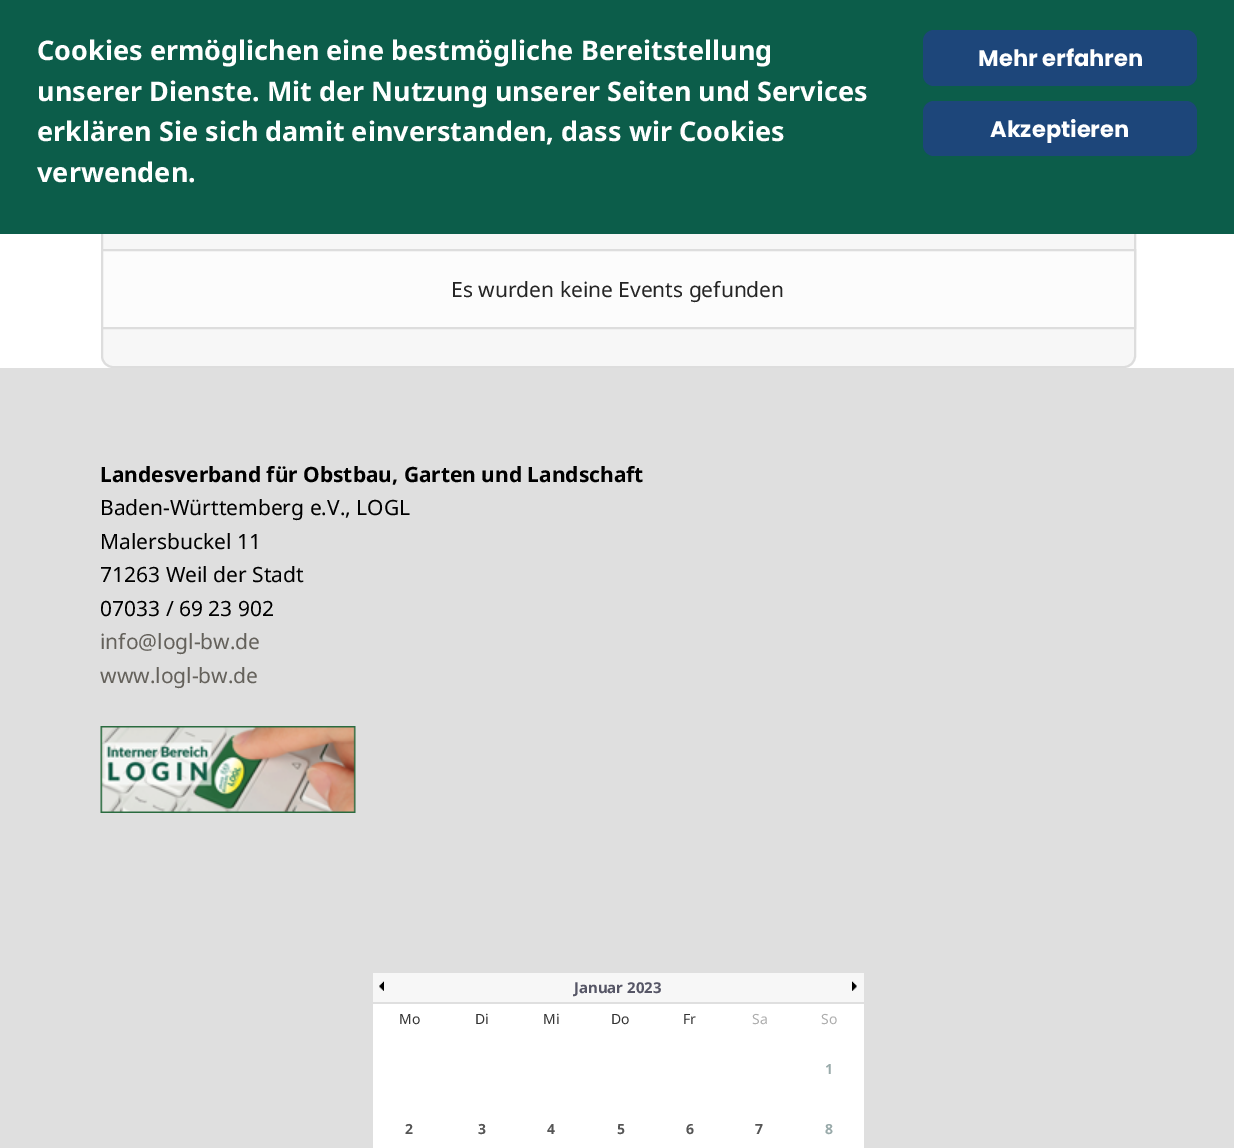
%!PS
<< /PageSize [1234 1148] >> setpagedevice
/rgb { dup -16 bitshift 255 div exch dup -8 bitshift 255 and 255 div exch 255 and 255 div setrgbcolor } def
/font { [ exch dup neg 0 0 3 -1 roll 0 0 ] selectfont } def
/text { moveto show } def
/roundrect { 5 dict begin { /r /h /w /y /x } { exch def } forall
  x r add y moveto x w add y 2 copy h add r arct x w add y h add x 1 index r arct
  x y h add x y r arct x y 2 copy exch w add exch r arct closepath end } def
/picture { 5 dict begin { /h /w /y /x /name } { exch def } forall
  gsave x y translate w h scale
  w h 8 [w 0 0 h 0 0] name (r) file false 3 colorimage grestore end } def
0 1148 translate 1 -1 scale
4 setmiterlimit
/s1 { /NotoSans-Bold 27 font 16#FFFFFF rgb } def
/s2 { /Poppins-Bold 22.5 font 16#FFFFFF rgb } def
/s3 { /NotoSans-Regular 21 font 16#252525 rgb } def
/s4 { /NotoSans-Bold 21 font 16#000000 rgb } def
/s5 { /NotoSans-Regular 21 font 16#000000 rgb } def
/s6 { /NotoSans-Regular 21 font 16#64615B rgb } def
/s7 { /NotoSans-Bold 15 font 16#565666 rgb } def
/s8 { /NotoSans-Regular 14 font 16#333333 rgb } def
/s9 { /NotoSans-Regular 14 font 16#ADADAD rgb } def
/s10 { /NotoSans-Bold 14 font 16#99AAAA rgb } def
/s11 { /NotoSans-Bold 14 font 16#555555 rgb } def
16#FFFFFF rgb
0 0 1234 1148 rectfill
16#F7F7F7 rgb
102 111 1033 256 11 roundrect gsave fill grestore
16#DDDDDD rgb
2 setlinewidth
stroke
16#0C5D4A rgb
0 0 1234 234 rectfill
s1
(Cookies ermöglichen eine bestmögliche Bereitstellung) 37 60 text
(unserer Dienste. Mit der Nutzung unserer Seiten und Services) 37 101 text
(erklären Sie sich damit einverstanden, dass wir Cookies) 37 141 text
(verwenden.) 37 182 text
16#1D467A rgb
923 30 274 56 11 roundrect fill
s2
(Mehr erfahren) 978 66 text
16#1D467A rgb
923 101 274 55 11 roundrect fill
s2
(Akzeptieren) 990 137 text
16#FCFCFC rgb
102 250 moveto 1135 250 lineto 1135 328 lineto 102 328 lineto closepath gsave fill grestore
16#DDDDDD rgb
stroke
s3
(Es wurden keine Events gefunden) 451 297 text
16#DFDFDF rgb
0 368 1234 780 rectfill
s4
(Landesverband für Obstbau, Garten und Landschaft) 100 482 text
s5
(Baden-Württemberg e.V., LOGL) 100 515 text
(Malersbuckel 11) 100 549 text
(71263 Weil der Stadt) 100 582 text
(07033 / 69 23 902) 100 616 text
s6
(info@logl-bw.de) 100 649 text
(www.logl-bw.de) 100 683 text
(pic1.raw) 100 726 256 87 picture
16#FFFFFF rgb
373 1004 491 144 rectfill
16#F7F7F7 rgb
373 973 491 29 rectfill
(pic2.raw) 379 981 5 10 picture
s7
(Januar 2023) 574 993 text
(pic3.raw) 852 981 5 10 picture
s8
(Mo) 399 1024 text
(Di) 475 1024 text
(Mi) 543 1024 text
(Do) 611 1024 text
(Fr) 683 1024 text
s9
(Sa) 752 1024 text
(So) 821 1024 text
s10
(1) 825 1074 text
s11
(2) 405 1134 text
(3) 478 1134 text
(4) 547 1134 text
(5) 617 1134 text
(6) 686 1134 text
(7) 755 1134 text
s10
(8) 825 1134 text
showpage
